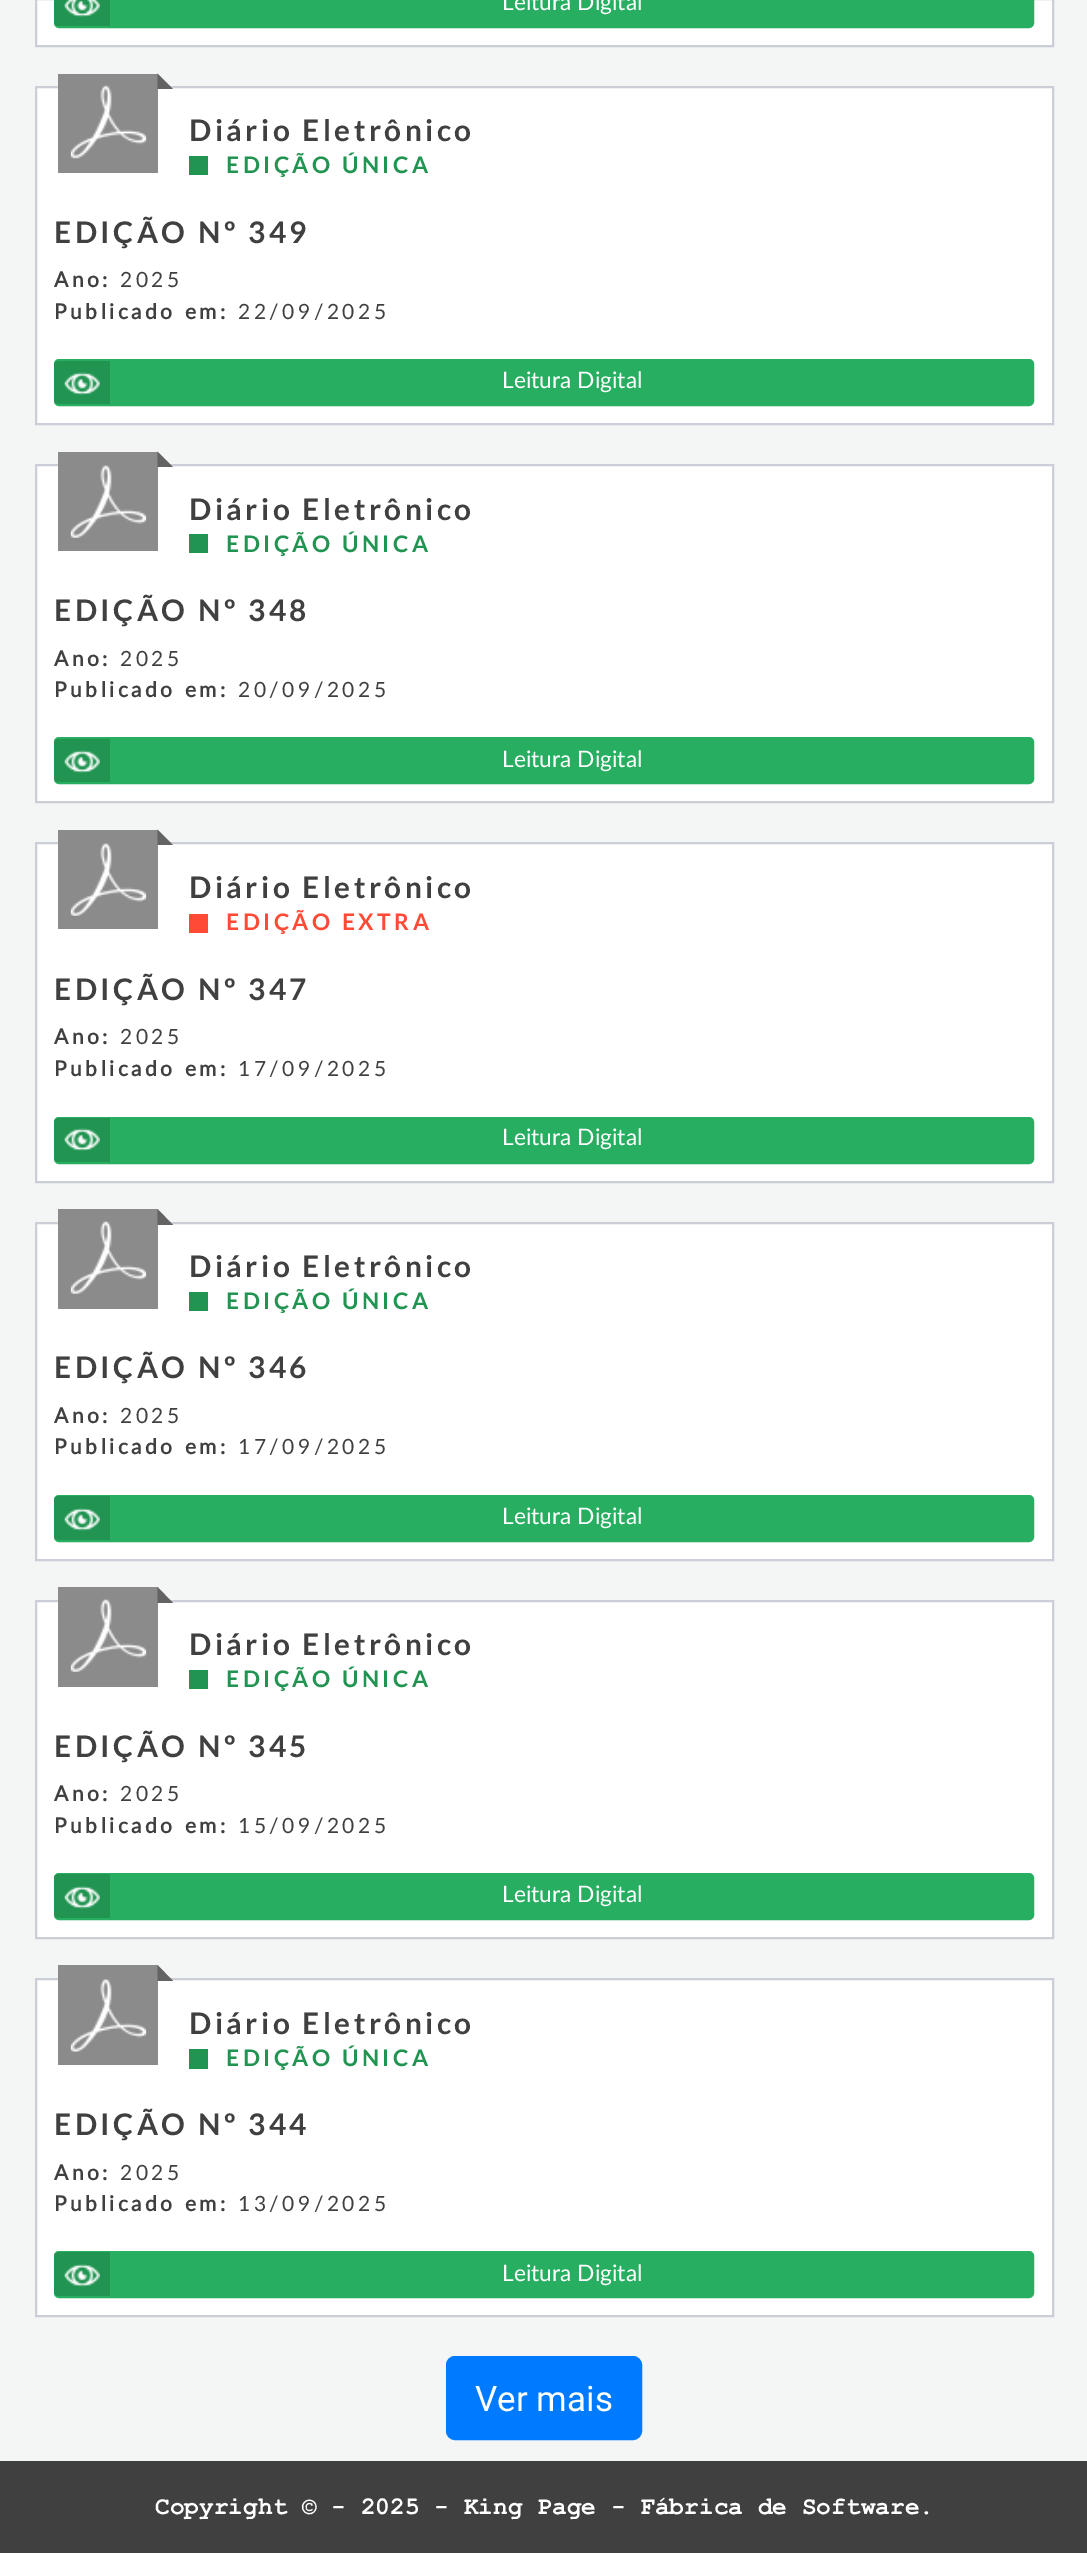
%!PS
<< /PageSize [1087 2553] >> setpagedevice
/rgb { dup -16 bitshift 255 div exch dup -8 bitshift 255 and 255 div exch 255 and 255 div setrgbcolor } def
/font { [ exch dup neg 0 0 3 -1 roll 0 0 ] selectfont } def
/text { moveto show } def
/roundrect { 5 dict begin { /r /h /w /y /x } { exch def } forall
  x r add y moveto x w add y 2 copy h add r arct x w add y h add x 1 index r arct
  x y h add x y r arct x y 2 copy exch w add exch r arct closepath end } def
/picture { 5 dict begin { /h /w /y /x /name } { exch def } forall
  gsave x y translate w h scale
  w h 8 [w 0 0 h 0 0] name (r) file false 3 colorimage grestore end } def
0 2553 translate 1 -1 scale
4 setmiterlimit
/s1 { /Lato-Regular 22.75 font 16#FFFFFF rgb } def
/s2 { /Roboto-Regular 35 font 16#FFFFFF rgb } def
/s3 { /CourierNew-Bold 24.5 font 16#FFFFFF rgb } def
16#F4F5F5 rgb
0 0 1087 2553 rectfill
16#FFFFFF rgb
36 -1 moveto 1053 -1 lineto 1053 46 lineto 36 46 lineto closepath gsave fill grestore
16#CBCED7 rgb
2 setlinewidth
stroke
16#27AE61 rgb
55 -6 978 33 4 roundrect gsave fill grestore
stroke
16#219451 rgb
59 -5 moveto 110 -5 lineto 110 26 lineto 59 26 lineto 56 26 54 24 54 21 curveto 54 0 lineto 54 -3 56 -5 59 -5 curveto closepath fill
(pic1.raw) 64 0 36 17 picture
s1
(Leitura Digital) 502 10 text
36 87 moveto 1053 87 lineto 1053 424 lineto 36 424 lineto closepath gsave fill grestore
16#CBCED7 rgb
stroke
16#8B8B8B rgb
58 74 100 99 rectfill
16#636363 rgb
173 89 moveto 157.5 89 lineto 157.5 73.5 lineto closepath fill
(pic2.raw) 70 85 77 74 picture
/Lato-Bold 29.75 font
16#404040 rgb
189 141 moveto 3.5 0 (Diário Eletrônico) ashow
16#219452 rgb
189 156 19 19 rectfill
/Lato-Bold 22.75 font
226 173 moveto 3.5 0 (EDIÇÃO ÚNICA) ashow
/Lato-Bold 29.75 font
16#404040 rgb
54 243 moveto 3.5 0 (EDIÇÃO Nº 349) ashow
/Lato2-Bold 21 font
54 287 moveto 3.5 0 (Ano:) ashow
/Lato-Regular 21 font
120 287 moveto 3.5 0 (2025) ashow
/Lato2-Bold 21 font
54 319 moveto 3.5 0 (Publicado em:) ashow
/Lato-Regular 21 font
238 319 moveto 3.5 0 (22/09/2025) ashow
16#27AE61 rgb
55 360 978 45 4 roundrect gsave fill grestore
stroke
16#219451 rgb
59 361 moveto 110 361 lineto 110 404 lineto 59 404 lineto 56 404 54 402 54 399 curveto 54 366 lineto 54 363 56 361 59 361 curveto closepath fill
(pic3.raw) 64 372 36 23 picture
s1
(Leitura Digital) 502 388 text
36 465 moveto 1053 465 lineto 1053 802 lineto 36 802 lineto closepath gsave fill grestore
16#CBCED7 rgb
stroke
16#8B8B8B rgb
58 452 100 99 rectfill
16#636363 rgb
173 467 moveto 157.5 467 lineto 157.5 451.5 lineto closepath fill
(pic4.raw) 70 465 77 73 picture
/Lato-Bold 29.75 font
16#404040 rgb
189 520 moveto 3.5 0 (Diário Eletrônico) ashow
16#219452 rgb
189 534 19 19 rectfill
/Lato-Bold 22.75 font
226 552 moveto 3.5 0 (EDIÇÃO ÚNICA) ashow
/Lato-Bold 29.75 font
16#404040 rgb
54 621 moveto 3.5 0 (EDIÇÃO Nº 348) ashow
/Lato2-Bold 21 font
54 666 moveto 3.5 0 (Ano:) ashow
/Lato-Regular 21 font
120 666 moveto 3.5 0 (2025) ashow
/Lato2-Bold 21 font
54 697 moveto 3.5 0 (Publicado em:) ashow
/Lato-Regular 21 font
238 697 moveto 3.5 0 (20/09/2025) ashow
16#27AE61 rgb
55 738 978 45 4 roundrect gsave fill grestore
stroke
16#219451 rgb
59 739 moveto 110 739 lineto 110 782 lineto 59 782 lineto 56 782 54 780 54 777 curveto 54 744 lineto 54 741 56 739 59 739 curveto closepath fill
(pic3.raw) 64 750 36 23 picture
s1
(Leitura Digital) 502 767 text
36 843 moveto 1053 843 lineto 1053 1182 lineto 36 1182 lineto closepath gsave fill grestore
16#CBCED7 rgb
stroke
16#8B8B8B rgb
58 830 100 99 rectfill
16#636363 rgb
173 845 moveto 157.5 845 lineto 157.5 829.5 lineto closepath fill
(pic4.raw) 70 843 77 73 picture
/Lato-Bold 29.75 font
16#404040 rgb
189 898 moveto 3.5 0 (Diário Eletrônico) ashow
16#FF4B36 rgb
189 914 19 19 rectfill
/Lato-Bold 22.75 font
226 930 moveto 3.5 0 (EDIÇÃO EXTRA) ashow
/Lato-Bold 29.75 font
16#404040 rgb
54 1000 moveto 3.5 0 (EDIÇÃO Nº 347) ashow
/Lato2-Bold 21 font
54 1044 moveto 3.5 0 (Ano:) ashow
/Lato-Regular 21 font
120 1044 moveto 3.5 0 (2025) ashow
/Lato2-Bold 21 font
54 1076 moveto 3.5 0 (Publicado em:) ashow
/Lato-Regular 21 font
238 1076 moveto 3.5 0 (17/09/2025) ashow
16#27AE61 rgb
55 1118 978 45 4 roundrect gsave fill grestore
stroke
16#219451 rgb
59 1118 moveto 110 1118 lineto 110 1162 lineto 59 1162 lineto 56 1162 54 1160 54 1157 curveto 54 1123 lineto 54 1120 56 1118 59 1118 curveto closepath fill
(pic3.raw) 64 1128 36 23 picture
s1
(Leitura Digital) 502 1145 text
36 1223 moveto 1053 1223 lineto 1053 1560 lineto 36 1560 lineto closepath gsave fill grestore
16#CBCED7 rgb
stroke
16#8B8B8B rgb
58 1209 100 100 rectfill
16#636363 rgb
173 1225 moveto 157.5 1225 lineto 157.5 1209 lineto closepath fill
(pic4.raw) 70 1221 77 73 picture
/Lato-Bold 29.75 font
16#404040 rgb
189 1277 moveto 3.5 0 (Diário Eletrônico) ashow
16#219452 rgb
189 1292 19 19 rectfill
/Lato-Bold 22.75 font
226 1309 moveto 3.5 0 (EDIÇÃO ÚNICA) ashow
/Lato-Bold 29.75 font
16#404040 rgb
54 1378 moveto 3.5 0 (EDIÇÃO Nº 346) ashow
/Lato2-Bold 21 font
54 1423 moveto 3.5 0 (Ano:) ashow
/Lato-Regular 21 font
120 1423 moveto 3.5 0 (2025) ashow
/Lato2-Bold 21 font
54 1454 moveto 3.5 0 (Publicado em:) ashow
/Lato-Regular 21 font
238 1454 moveto 3.5 0 (17/09/2025) ashow
16#27AE61 rgb
55 1496 978 45 4 roundrect gsave fill grestore
stroke
16#219451 rgb
59 1496 moveto 110 1496 lineto 110 1540 lineto 59 1540 lineto 56 1540 54 1538 54 1535 curveto 54 1501 lineto 54 1498 56 1496 59 1496 curveto closepath fill
(pic5.raw) 64 1508 36 23 picture
s1
(Leitura Digital) 502 1524 text
36 1601 moveto 1053 1601 lineto 1053 1938 lineto 36 1938 lineto closepath gsave fill grestore
16#CBCED7 rgb
stroke
16#8B8B8B rgb
58 1587 100 100 rectfill
16#636363 rgb
173 1603 moveto 157.5 1603 lineto 157.5 1587 lineto closepath fill
(pic6.raw) 70 1599 77 73 picture
/Lato-Bold 29.75 font
16#404040 rgb
189 1655 moveto 3.5 0 (Diário Eletrônico) ashow
16#219452 rgb
189 1670 19 19 rectfill
/Lato-Bold 22.75 font
226 1687 moveto 3.5 0 (EDIÇÃO ÚNICA) ashow
/Lato-Bold 29.75 font
16#404040 rgb
54 1757 moveto 3.5 0 (EDIÇÃO Nº 345) ashow
/Lato2-Bold 21 font
54 1801 moveto 3.5 0 (Ano:) ashow
/Lato-Regular 21 font
120 1801 moveto 3.5 0 (2025) ashow
/Lato2-Bold 21 font
54 1833 moveto 3.5 0 (Publicado em:) ashow
/Lato-Regular 21 font
238 1833 moveto 3.5 0 (15/09/2025) ashow
16#27AE61 rgb
55 1874 978 45 4 roundrect gsave fill grestore
stroke
16#219451 rgb
59 1874 moveto 110 1874 lineto 110 1918 lineto 59 1918 lineto 56 1918 54 1916 54 1913 curveto 54 1879 lineto 54 1876 56 1874 59 1874 curveto closepath fill
(pic5.raw) 64 1886 36 23 picture
s1
(Leitura Digital) 502 1902 text
36 1979 moveto 1053 1979 lineto 1053 2316 lineto 36 2316 lineto closepath gsave fill grestore
16#CBCED7 rgb
stroke
16#8B8B8B rgb
58 1965 100 100 rectfill
16#636363 rgb
173 1981 moveto 157.5 1981 lineto 157.5 1965 lineto closepath fill
(pic7.raw) 70 1979 77 73 picture
/Lato-Bold 29.75 font
16#404040 rgb
189 2034 moveto 3.5 0 (Diário Eletrônico) ashow
16#219452 rgb
189 2049 19 20 rectfill
/Lato-Bold 22.75 font
226 2066 moveto 3.5 0 (EDIÇÃO ÚNICA) ashow
/Lato-Bold 29.75 font
16#404040 rgb
54 2135 moveto 3.5 0 (EDIÇÃO Nº 344) ashow
/Lato2-Bold 21 font
54 2180 moveto 3.5 0 (Ano:) ashow
/Lato-Regular 21 font
120 2180 moveto 3.5 0 (2025) ashow
/Lato2-Bold 21 font
54 2211 moveto 3.5 0 (Publicado em:) ashow
/Lato-Regular 21 font
238 2211 moveto 3.5 0 (13/09/2025) ashow
16#27AE61 rgb
55 2252 978 45 4 roundrect gsave fill grestore
stroke
16#219451 rgb
59 2252 moveto 110 2252 lineto 110 2296 lineto 59 2296 lineto 56 2296 54 2294 54 2291 curveto 54 2257 lineto 54 2254 56 2252 59 2252 curveto closepath fill
(pic5.raw) 64 2264 36 23 picture
s1
(Leitura Digital) 502 2281 text
16#007BFF rgb
447 2357 194 82 8 roundrect gsave fill grestore
stroke
s2
(Ver mais) 475 2411 text
16#404040 rgb
0 2461 1087 92 rectfill
s3
(Copyright © - 2025 - King Page - Fábrica de Software.) 155 2514 text
showpage
